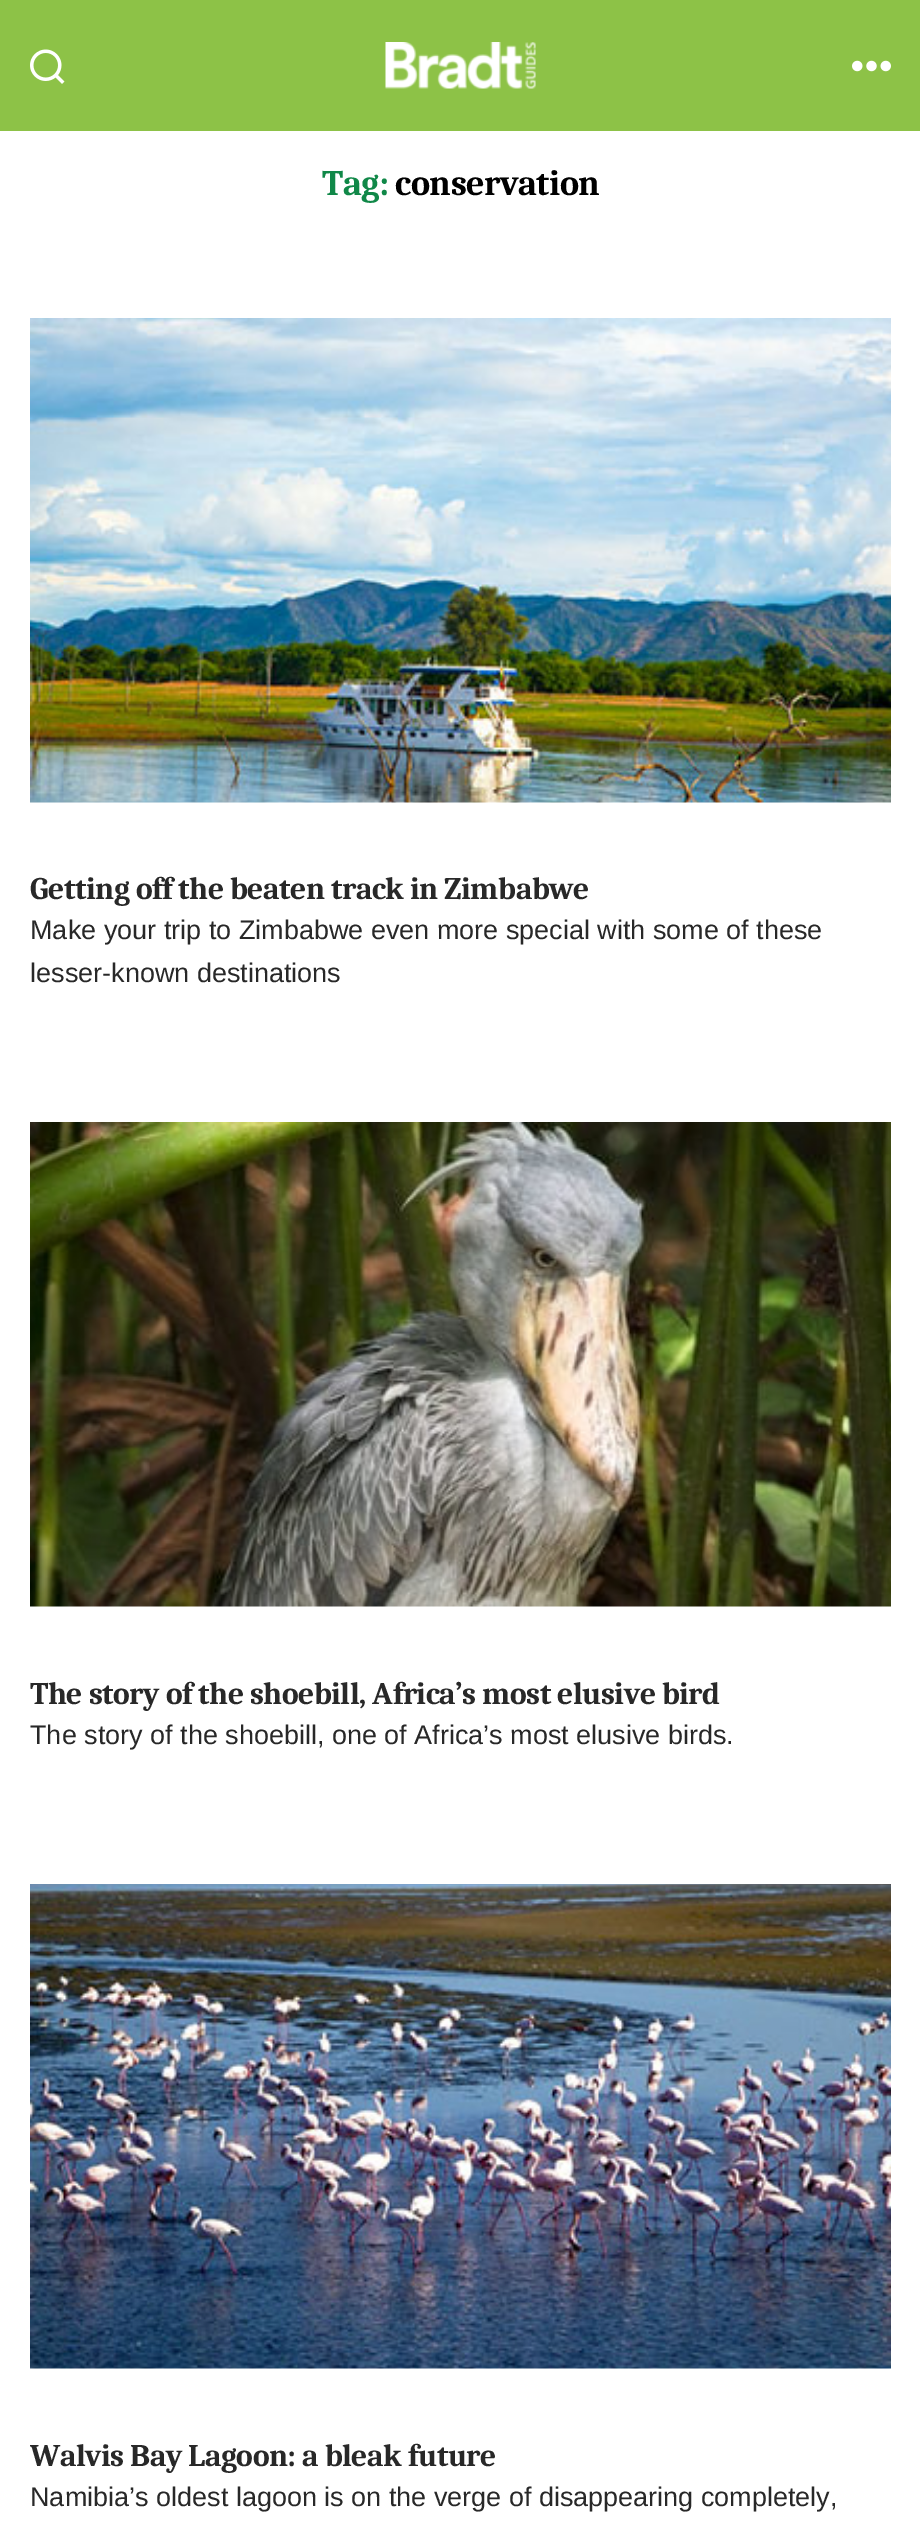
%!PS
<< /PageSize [920 2536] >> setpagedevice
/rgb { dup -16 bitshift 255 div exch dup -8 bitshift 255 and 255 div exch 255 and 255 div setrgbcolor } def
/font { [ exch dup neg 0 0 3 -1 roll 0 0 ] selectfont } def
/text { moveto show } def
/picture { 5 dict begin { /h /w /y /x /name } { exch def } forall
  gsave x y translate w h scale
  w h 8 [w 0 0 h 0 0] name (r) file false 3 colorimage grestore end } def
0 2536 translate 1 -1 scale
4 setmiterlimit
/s1 { /LiberationSans-Regular 27 font 16#282828 rgb } def
16#FFFFFF rgb
0 0 920 2536 rectfill
16#8DC247 rgb
0 0 920 131 rectfill
(pic1.raw) 30 49 35 35 picture
(pic2.raw) 385 42 151 47 picture
(pic3.raw) 852 60 39 12 picture
/Caladea-Bold 36 font
16#108848 rgb
322 195 moveto -0.5 0 (Tag:) ashow
16#000000 rgb
395 195 moveto -0.5 0 (conservation) ashow
(pic4.raw) 30 318 861 485 picture
/Caladea-Bold 31.5 font
16#282828 rgb
30 899 moveto -0.47 0 (Getting off the beaten track in Zimbabwe) ashow
s1
(Make your trip to Zimbabwe even more special with some of these) 30 939 text
(lesser-known destinations) 30 982 text
(pic5.raw) 30 1122 861 485 picture
/Caladea-Bold 31.5 font
30 1704 moveto -0.47 0 (The story of the shoebill, Africa’s most elusive bird) ashow
s1
(The story of the shoebill, one of Africa’s most elusive birds.) 30 1744 text
(pic6.raw) 30 1884 861 485 picture
/Caladea-Bold 31.5 font
30 2466 moveto -0.47 0 (Walvis Bay Lagoon: a bleak future) ashow
s1
(Namibia’s oldest lagoon is on the verge of disappearing completely,) 30 2506 text
showpage
